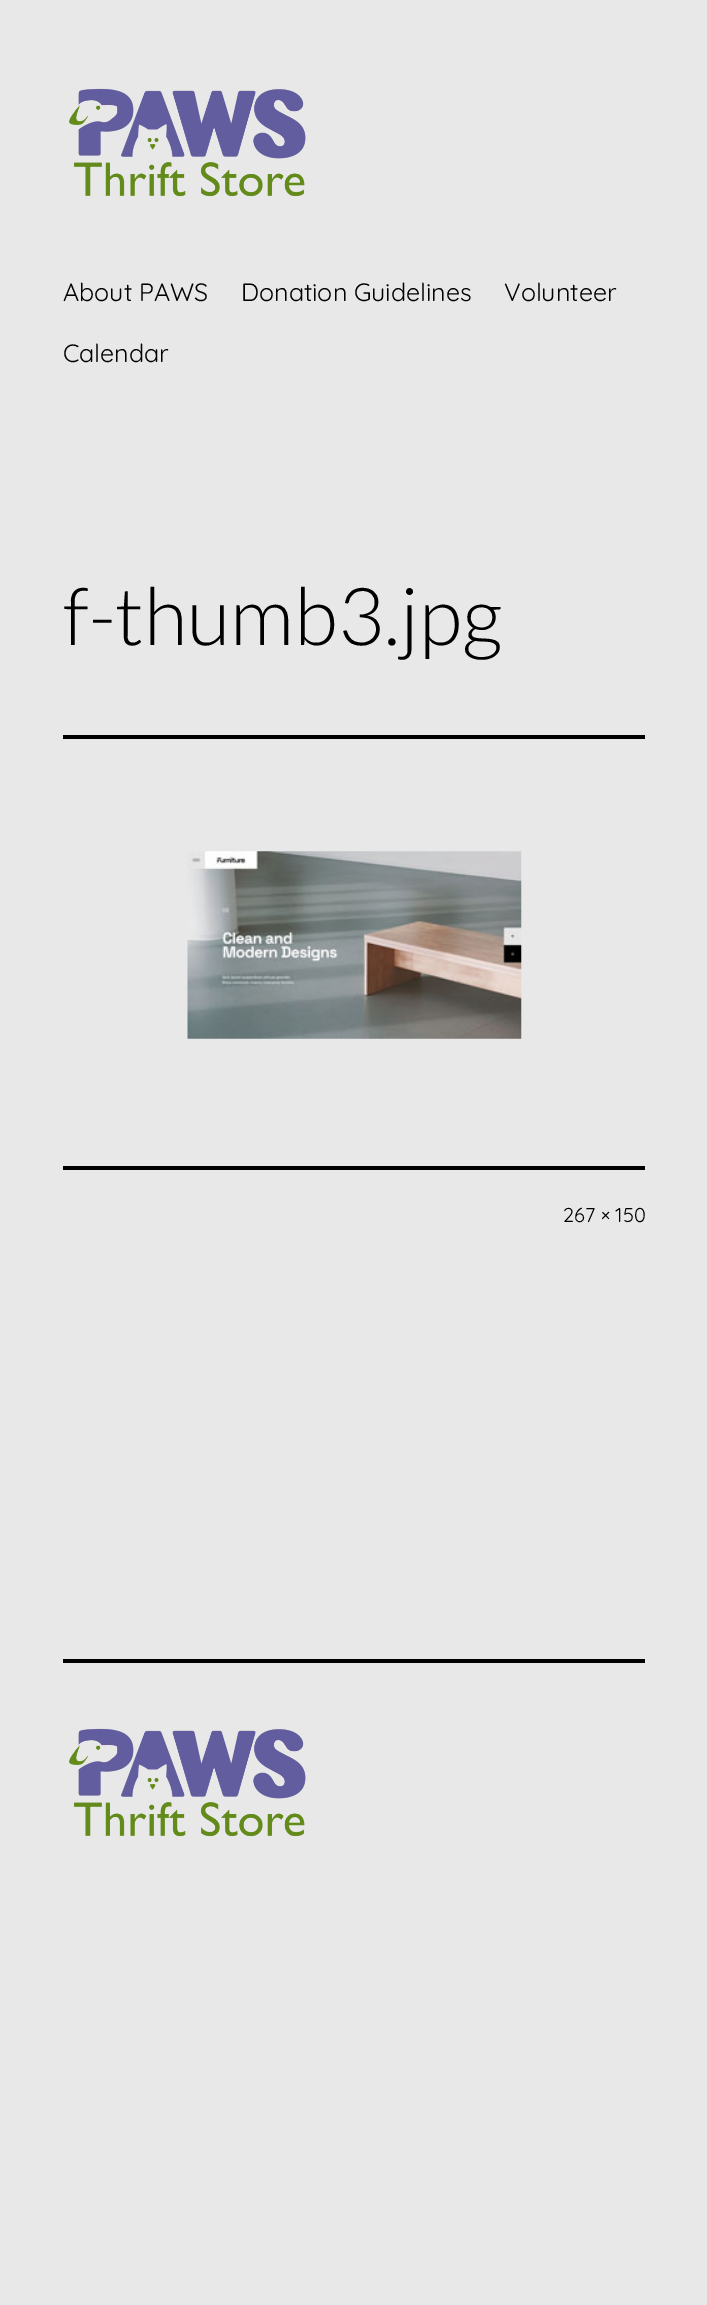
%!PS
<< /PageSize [707 2305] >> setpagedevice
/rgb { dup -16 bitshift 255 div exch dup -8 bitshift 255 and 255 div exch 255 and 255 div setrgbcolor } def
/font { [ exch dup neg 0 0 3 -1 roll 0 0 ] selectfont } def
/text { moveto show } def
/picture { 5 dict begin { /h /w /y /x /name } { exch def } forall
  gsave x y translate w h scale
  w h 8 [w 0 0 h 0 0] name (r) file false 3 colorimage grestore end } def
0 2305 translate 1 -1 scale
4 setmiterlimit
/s1 { /Quicksand-Regular 25 font 16#000000 rgb } def
/s2 { /Lato-Light 80 font 16#000000 rgb } def
/s3 { /Quicksand-Regular 20 font 16#000000 rgb } def
16#E8E8E8 rgb
0 0 707 2305 rectfill
(pic1.raw) 69 88 237 109 picture
s1
(About PAWS) 63 301 text
(Donation Guidelines) 241 301 text
(Volunteer) 504 301 text
(Calendar) 63 362 text
63 735 582 4 rectfill
s2
(f-thumb3.jpg) 63 645 text
(pic2.raw) 187 851 335 188 picture
63 1166 582 4 rectfill
s3
(267 × 150) 563 1222 text
63 1659 582 4 rectfill
(pic1.raw) 69 1728 237 109 picture
showpage
